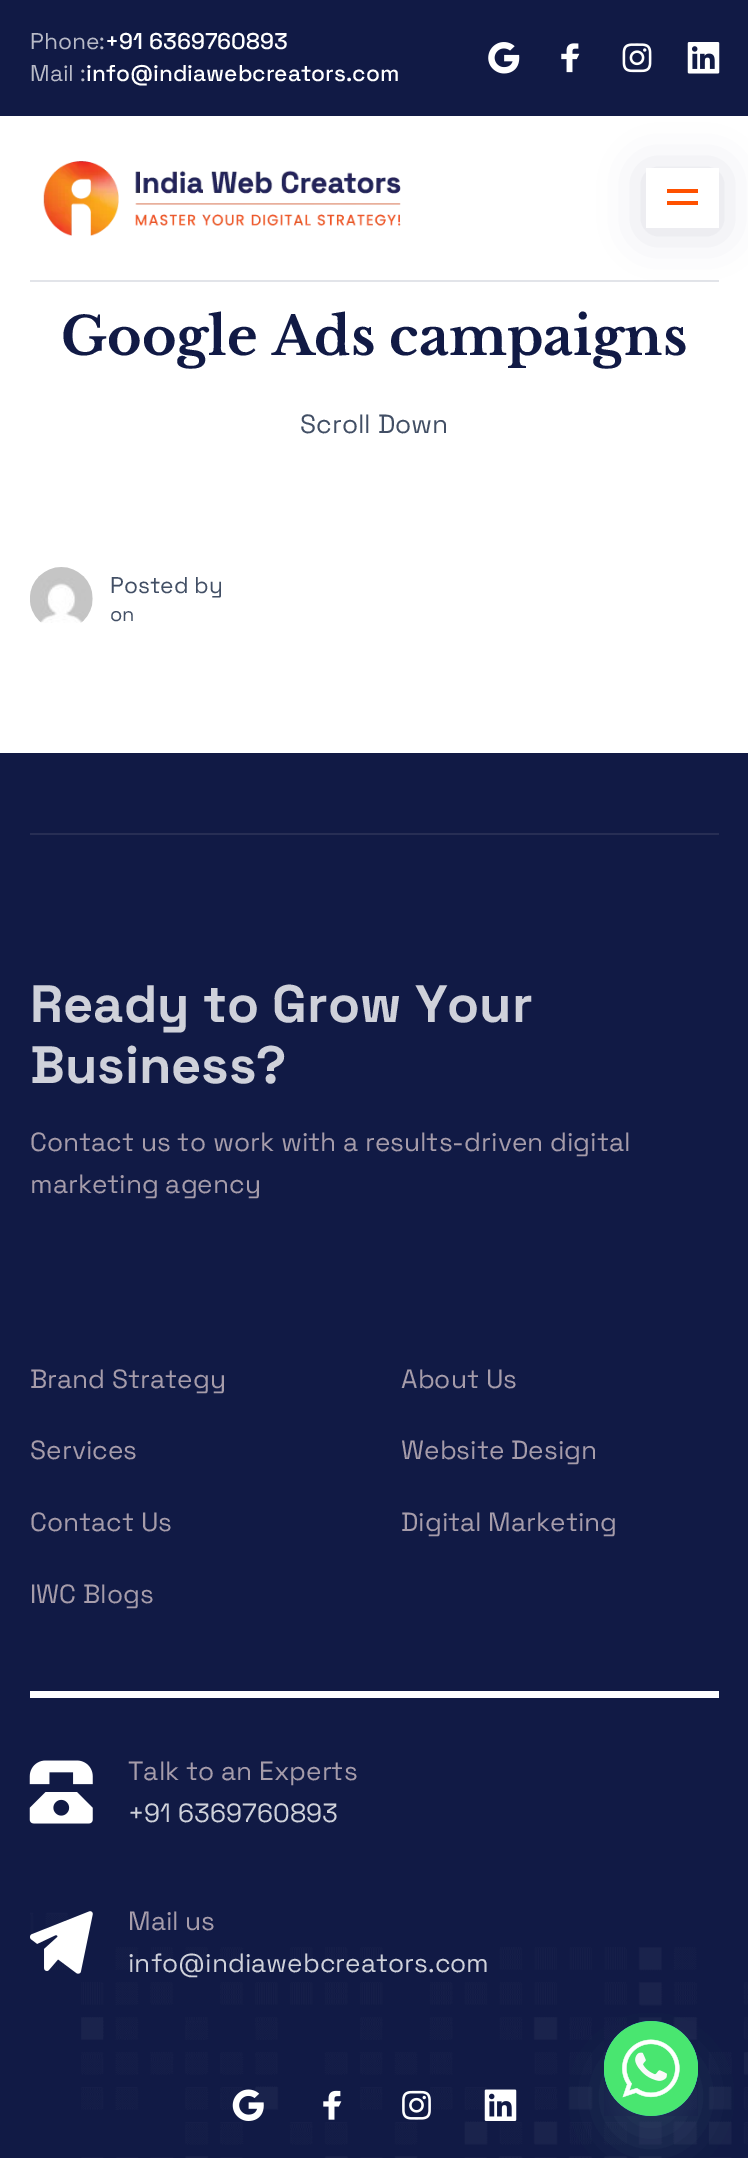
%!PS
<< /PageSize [748 2158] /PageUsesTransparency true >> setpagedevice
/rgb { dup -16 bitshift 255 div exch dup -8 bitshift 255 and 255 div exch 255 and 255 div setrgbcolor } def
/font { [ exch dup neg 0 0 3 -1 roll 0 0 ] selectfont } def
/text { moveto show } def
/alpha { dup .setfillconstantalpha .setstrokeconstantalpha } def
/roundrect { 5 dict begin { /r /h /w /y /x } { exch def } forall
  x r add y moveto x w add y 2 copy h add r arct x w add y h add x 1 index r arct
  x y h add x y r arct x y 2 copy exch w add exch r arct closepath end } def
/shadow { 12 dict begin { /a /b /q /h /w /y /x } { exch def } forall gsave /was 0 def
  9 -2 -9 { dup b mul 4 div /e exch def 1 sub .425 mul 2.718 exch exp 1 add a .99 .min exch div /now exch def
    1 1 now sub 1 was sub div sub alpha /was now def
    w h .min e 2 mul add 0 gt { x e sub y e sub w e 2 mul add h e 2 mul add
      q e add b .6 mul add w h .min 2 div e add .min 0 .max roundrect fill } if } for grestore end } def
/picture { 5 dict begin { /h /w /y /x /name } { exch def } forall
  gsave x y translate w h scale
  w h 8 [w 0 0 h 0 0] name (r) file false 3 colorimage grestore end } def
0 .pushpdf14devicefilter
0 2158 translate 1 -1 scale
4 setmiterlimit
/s1 { /SpaceGrotesk-Regular 22.75 font 16#B8BAC7 rgb } def
/s2 { /SpaceGrotesk-Medium 22.75 font 16#FFFFFF rgb } def
/s3 { /LibreBaskerville-Bold 52.5 font 16#111A45 rgb } def
/s4 { /SpaceGrotesk-Regular 26.25 font 16#424F65 rgb } def
/s5 { /SpaceGrotesk-Regular 22.75 font 16#424F65 rgb } def
/s6 { /SpaceGrotesk-Regular 20 font 16#424F65 rgb } def
/s7 { /SpaceGrotesk-Bold 52.5 font 16#CFD1DA rgb } def
/s8 { /SpaceGrotesk-Regular 26.25 font 16#A69CAA rgb } def
/s9 { /SpaceGrotesk-Regular 26.25 font 16#CFD1DA rgb } def
16#FFFFFF rgb
0 0 748 2158 rectfill
16#E2E4E9 rgb
30 280 689 2 rectfill
16#111A45 rgb
646 172 73 59 0 22 0.15 shadow
0 0 748 116 rectfill
s1
(Phone:) 30 49 text
s2
(+91 6369760893) 105 49 text
s1
(Mail :) 30 81 text
s2
(info@indiawebcreators.com) 86 81 text
(pic1.raw) 488 42 32 32 picture
(pic2.raw) 561 43 19 30 picture
(pic3.raw) 622 43 30 30 picture
(pic4.raw) 687 42 33 32 picture
(pic5.raw) 43 161 358 75 picture
646 168 73 60 rectfill
16#FF5100 rgb
667 189 31 4 rectfill
667 201 31 4 rectfill
s3
(Google Ads campaigns) 61 355 text
s4
(Scroll Down) 300 433 text
(pic6.raw) 30 567 63 56 picture
s5
(Posted by) 110 593 text
s6
(on) 110 621 text
16#111A45 rgb
0 753 748 1405 rectfill
(pic7.raw) 81 1947 667 211 picture
16#272E54 rgb
30 833 689 2 rectfill
s7
(Ready to Grow Your) 30 1022 text
(Business?) 30 1083 text
s8
(Contact us to work with a results-driven digital) 30 1151 text
(marketing agency) 30 1193 text
(Brand Strategy) 30 1388 text
(About Us) 401 1388 text
(Services) 30 1459 text
(Website Design) 401 1459 text
(Contact Us) 30 1531 text
(Digital Marketing) 401 1531 text
(IWC Blogs) 30 1603 text
16#FFFFFF rgb
30 1691 689 7 rectfill
(pic8.raw) 29 1760 64 64 picture
s8
(Talk to an Experts) 128 1780 text
s9
(+91 6369760893) 128 1822 text
(pic9.raw) 30 1911 63 63 picture
s8
(Mail us) 128 1930 text
s9
(info@indiawebcreators.com) 128 1972 text
(pic10.raw) 232 2089 32 32 picture
(pic11.raw) 323 2090 19 30 picture
(pic12.raw) 402 2090 29 30 picture
(pic13.raw) 484 2089 33 32 picture
16#49687E rgb
604 2049 94 95 47 21 0.16 shadow
(pic14.raw) 604 2021 94 95 picture
604 2049 94 95 47 21 0.16 shadow
16#49E670 rgb
604 2021 94 95 47 roundrect fill
(pic15.raw) 604 2021 94 95 picture
.poppdf14devicefilter showpage
